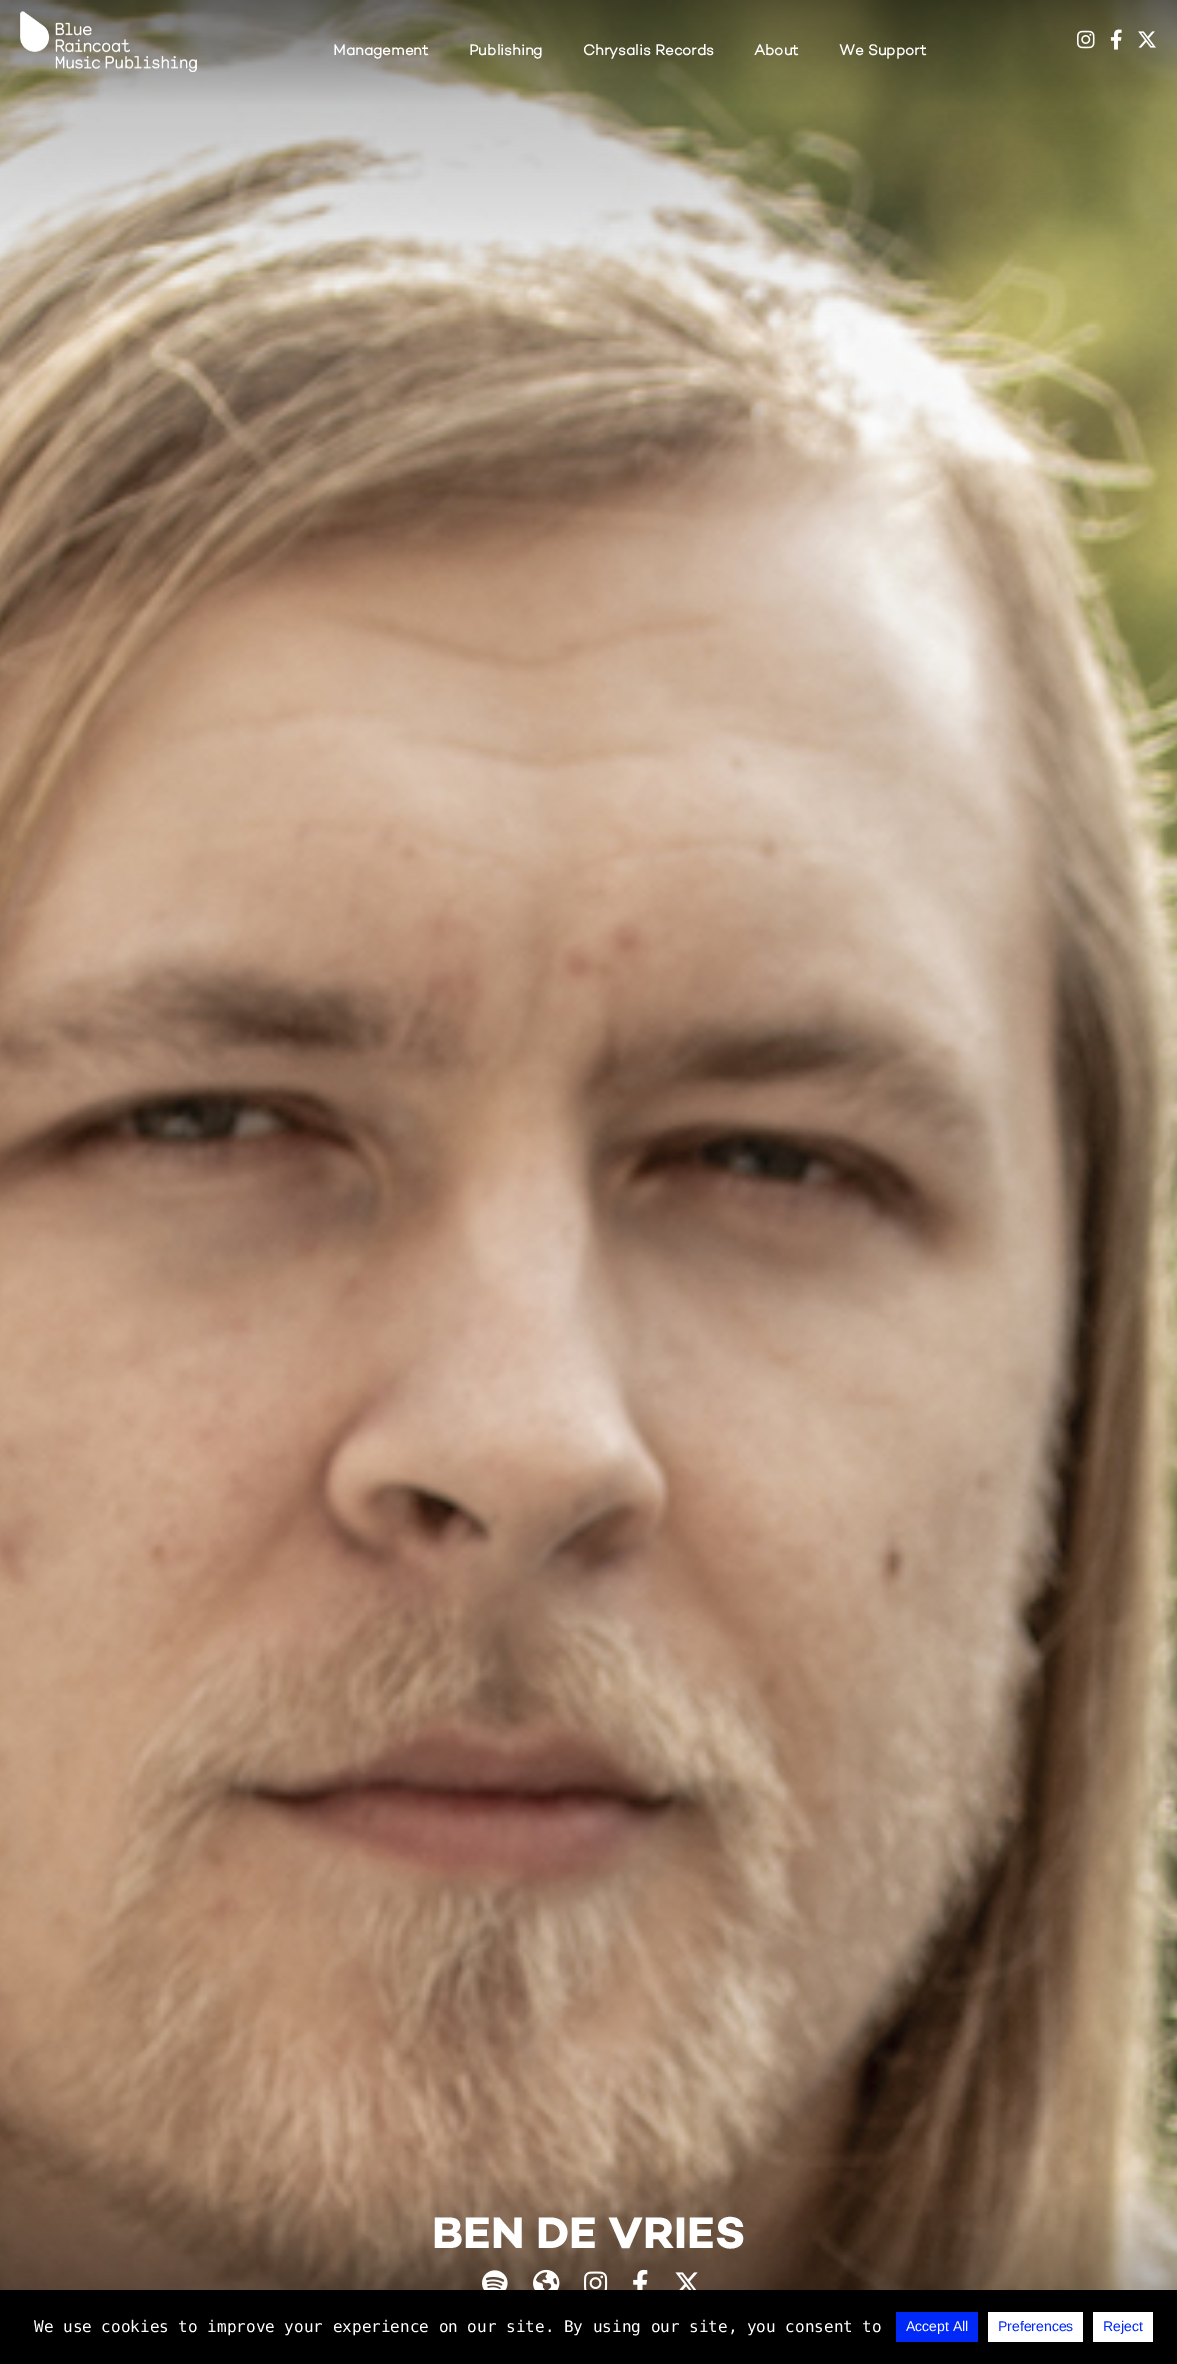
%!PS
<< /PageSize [1177 2364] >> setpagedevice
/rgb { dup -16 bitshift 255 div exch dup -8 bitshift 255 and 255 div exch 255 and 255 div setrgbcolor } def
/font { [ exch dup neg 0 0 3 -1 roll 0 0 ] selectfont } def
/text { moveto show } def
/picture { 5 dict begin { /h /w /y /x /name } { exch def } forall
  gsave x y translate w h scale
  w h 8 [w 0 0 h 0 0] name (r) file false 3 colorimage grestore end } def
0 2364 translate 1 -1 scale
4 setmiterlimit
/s1 { /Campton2-Bold 15 font 16#FFFFFF rgb } def
/s2 { /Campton-Bold 45 font 16#FFFFFF rgb } def
/s3 { /DejaVuSansMono-Regular 16 font 16#FFFFFF rgb } def
/s4 { /LiberationSans-Regular 14 font 16#FFFFFF rgb } def
/s5 { /LiberationSans-Regular 14 font 16#0028F6 rgb } def
16#FFFFFF rgb
0 0 1177 2364 rectfill
(pic5.raw) 0 0 1177 2290 picture
(pic1.raw) 20 11 177 61 picture
(pic2.raw) 1077 30 18 19 picture
(pic3.raw) 1110 29 12 21 picture
(pic4.raw) 1138 31 18 17 picture
s1
(Management) 333 55 text
(Publishing) 469 55 text
(Chrysalis Records) 583 55 text
(About) 754 55 text
(We Support) 839 55 text
s2
(BEN DE VRIES) 432 2248 text
(pic6.raw) 482 2270 26 20 picture
(pic7.raw) 533 2269 27 21 picture
(pic8.raw) 584 2271 24 19 picture
(pic9.raw) 633 2269 15 21 picture
(pic10.raw) 675 2272 23 18 picture
16#000000 rgb
0 2290 1177 74 rectfill
s3
(We use cookies to improve your experience on our site. By using our site, you consent to) 34 2332 text
16#0028F6 rgb
896 2312 82 30 rectfill
s4
(Accept All) 906 2331 text
988 2312 95 30 rectfill
s5
(Preferences) 998 2331 text
16#FFFFFF rgb
1093 2312 60 30 rectfill
s5
(Reject) 1103 2331 text
showpage
